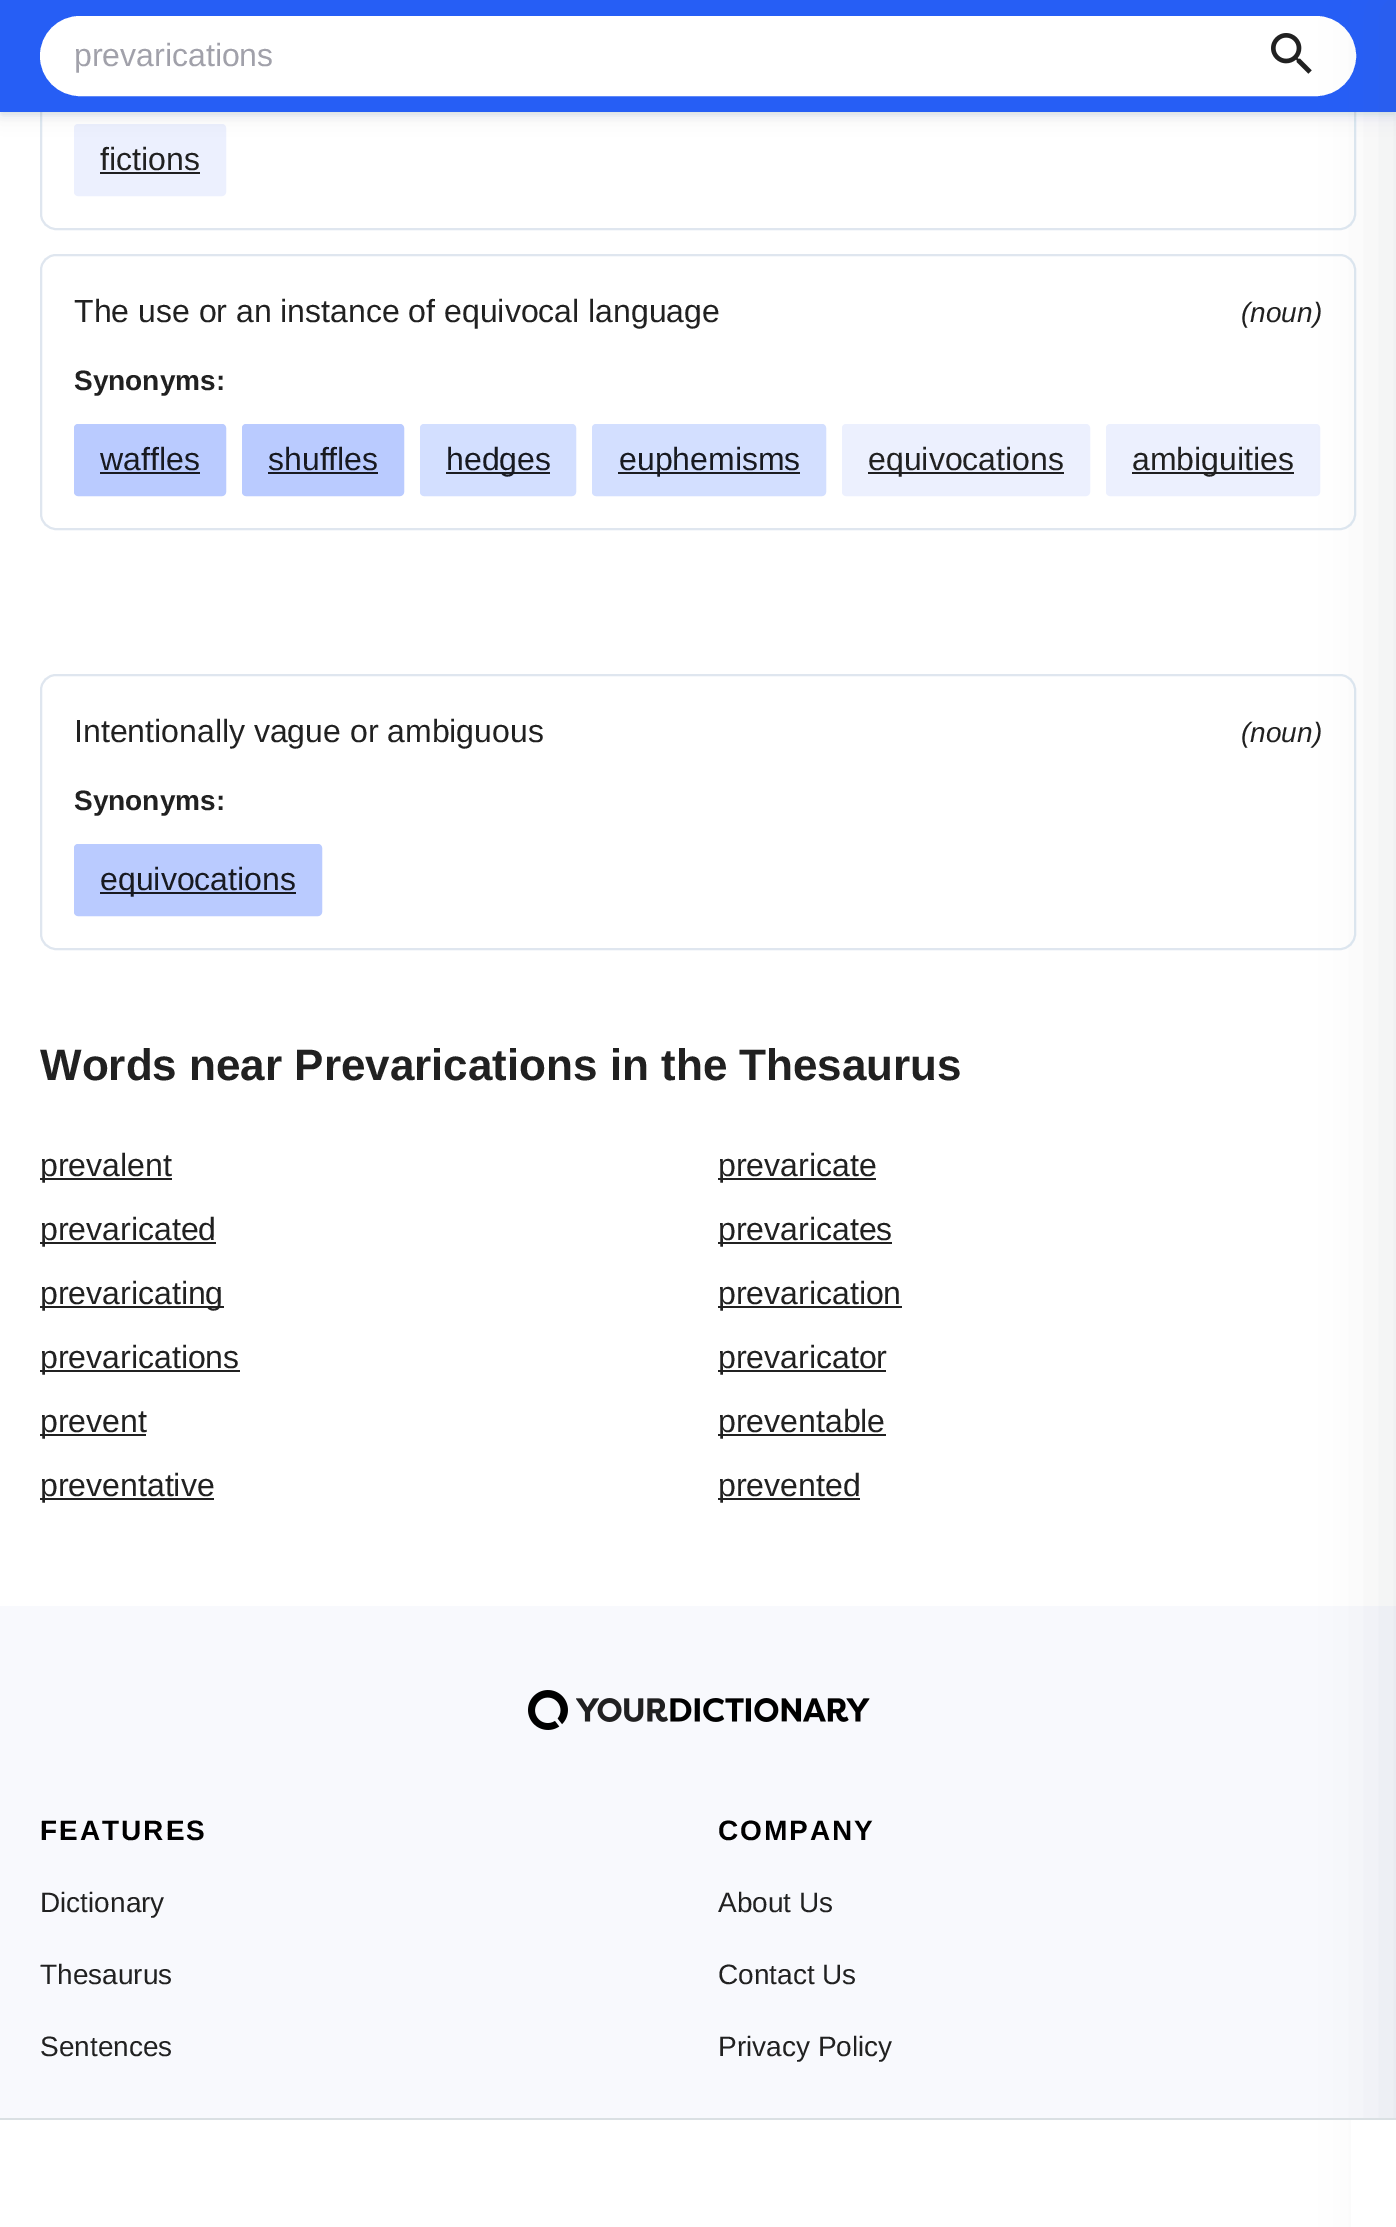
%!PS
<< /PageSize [1396 2227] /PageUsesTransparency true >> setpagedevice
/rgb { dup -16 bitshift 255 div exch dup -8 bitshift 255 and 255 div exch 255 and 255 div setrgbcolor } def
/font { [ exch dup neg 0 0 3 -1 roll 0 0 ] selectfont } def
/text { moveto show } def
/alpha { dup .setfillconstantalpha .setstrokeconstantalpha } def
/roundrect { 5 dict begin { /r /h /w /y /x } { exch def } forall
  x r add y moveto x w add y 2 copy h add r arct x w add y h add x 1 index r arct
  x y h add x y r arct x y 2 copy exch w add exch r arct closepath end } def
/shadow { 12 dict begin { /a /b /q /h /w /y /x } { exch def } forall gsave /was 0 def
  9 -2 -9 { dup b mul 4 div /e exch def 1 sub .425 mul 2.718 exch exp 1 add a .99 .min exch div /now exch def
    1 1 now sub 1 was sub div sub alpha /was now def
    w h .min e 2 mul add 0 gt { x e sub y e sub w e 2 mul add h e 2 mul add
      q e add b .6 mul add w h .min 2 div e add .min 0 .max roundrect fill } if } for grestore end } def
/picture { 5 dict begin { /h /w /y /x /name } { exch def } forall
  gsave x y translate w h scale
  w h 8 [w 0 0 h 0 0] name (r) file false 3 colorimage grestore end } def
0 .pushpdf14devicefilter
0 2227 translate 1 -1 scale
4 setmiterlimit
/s1 { /LiberationSans-Regular 32 font 16#A1A1AA rgb } def
/s2 { /LiberationSans-Regular 32 font 16#212121 rgb } def
/s3 { /LiberationSans-Italic 28 font 16#212121 rgb } def
/s4 { /LiberationSans-Bold 28 font 16#212121 rgb } def
/s5 { /LiberationSans-Regular 32 font 16#181A21 rgb } def
/s6 { /LiberationSans-Bold 44 font 16#212121 rgb } def
/s7 { /LiberationSans-Regular 28 font 16#212121 rgb } def
16#FFFFFF rgb
0 0 1396 2227 rectfill
16#DFE6EF rgb
2 setlinewidth
41 -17 1314 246 15 roundrect stroke
16#ECF0FE rgb
75 125 150 70 3 roundrect gsave fill grestore
stroke
16#546E7A rgb
2 -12 1392 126 0 4 0.2 shadow
0 -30 1396 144 0 10 0.12 shadow
16#265EF5 rgb
0 0 1396 112 rectfill
16#FFFFFF rgb
42 18 1312 76 38 roundrect gsave fill grestore
4 setlinewidth
stroke
s1
(prevarications) 74 66 text
(pic1.raw) 1271 33 41 41 picture
16#DFE6EF rgb
2 setlinewidth
41 255 1314 274 15 roundrect stroke
16#ECF0FE rgb
1107 425 212 70 3 roundrect gsave fill grestore
stroke
16#DFE6EF rgb
41 675 1314 274 15 roundrect stroke
16#F8F9FD rgb
0 1606 1396 512 rectfill
16#546E7A rgb
1386 2 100 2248 0 30 0.12 shadow
s2
(fictions) 100 170 text
16#1F1F21 rgb
100 172 100 2 rectfill
s2
(The use or an instance of equivocal language) 74 322 text
s3
(\(noun\)) 1241 322 text
s4
(Synonyms:) 74 390 text
16#BACBFF rgb
75 425 150 70 3 roundrect gsave fill grestore
stroke
s5
(waffles) 100 470 text
100 472 100 2 rectfill
16#BACBFF rgb
243 425 160 70 3 roundrect gsave fill grestore
stroke
s5
(shuffles) 268 470 text
268 472 110 2 rectfill
16#D3DFFF rgb
421 425 154 70 3 roundrect gsave fill grestore
stroke
16#1B1D21 rgb
446 472 104 2 rectfill
s5
(hedges) 446 470 text
16#D3DFFF rgb
593 425 232 70 3 roundrect gsave fill grestore
stroke
16#1B1D21 rgb
618 472 182 2 rectfill
s5
(euphemisms) 619 470 text
16#ECF0FE rgb
843 425 246 70 3 roundrect gsave fill grestore
stroke
16#1F1F21 rgb
868 472 196 2 rectfill
s2
(equivocations) 868 470 text
16#1F1F21 rgb
1132 472 162 2 rectfill
s2
(ambiguities) 1132 470 text
(Intentionally vague or ambiguous) 74 742 text
s3
(\(noun\)) 1241 742 text
s4
(Synonyms:) 74 810 text
16#BACBFF rgb
75 845 246 70 3 roundrect gsave fill grestore
stroke
16#181A21 rgb
100 892 196 2 rectfill
s5
(equivocations) 100 890 text
s6
(Words near Prevarications in the Thesaurus) 40 1080 text
40 1178 132 2 rectfill
s2
(prevalent) 40 1176 text
718 1178 158 2 rectfill
(prevaricate) 718 1176 text
40 1242 176 2 rectfill
(prevaricated) 40 1240 text
718 1242 174 2 rectfill
(prevaricates) 718 1240 text
40 1306 184 2 rectfill
(prevaricating) 40 1304 text
718 1306 184 2 rectfill
(prevarication) 718 1304 text
40 1370 200 2 rectfill
(prevarications) 40 1368 text
718 1370 168 2 rectfill
(prevaricator) 718 1368 text
40 1434 106 2 rectfill
(prevent) 40 1432 text
718 1434 168 2 rectfill
(preventable) 718 1432 text
40 1498 174 2 rectfill
(preventative) 40 1496 text
718 1498 142 2 rectfill
(prevented) 718 1496 text
(pic2.raw) 528 1690 342 40 picture
/LiberationSans-Bold 28 font
16#000000 rgb
40 1840 moveto 2 0 (FEATURES) ashow
s7
(Dictionary) 40 1912 text
(Thesaurus) 40 1984 text
(Sentences) 40 2056 text
/LiberationSans-Bold 28 font
16#000000 rgb
718 1840 moveto 2 0 (COMPANY) ashow
s7
(About Us) 718 1912 text
(Contact Us) 718 1984 text
(Privacy Policy) 718 2056 text
16#FFFFFF rgb
1351 2120 45 107 rectfill
16#DAE0E3 rgb
0 2118 1396 2 rectfill
.poppdf14devicefilter showpage
